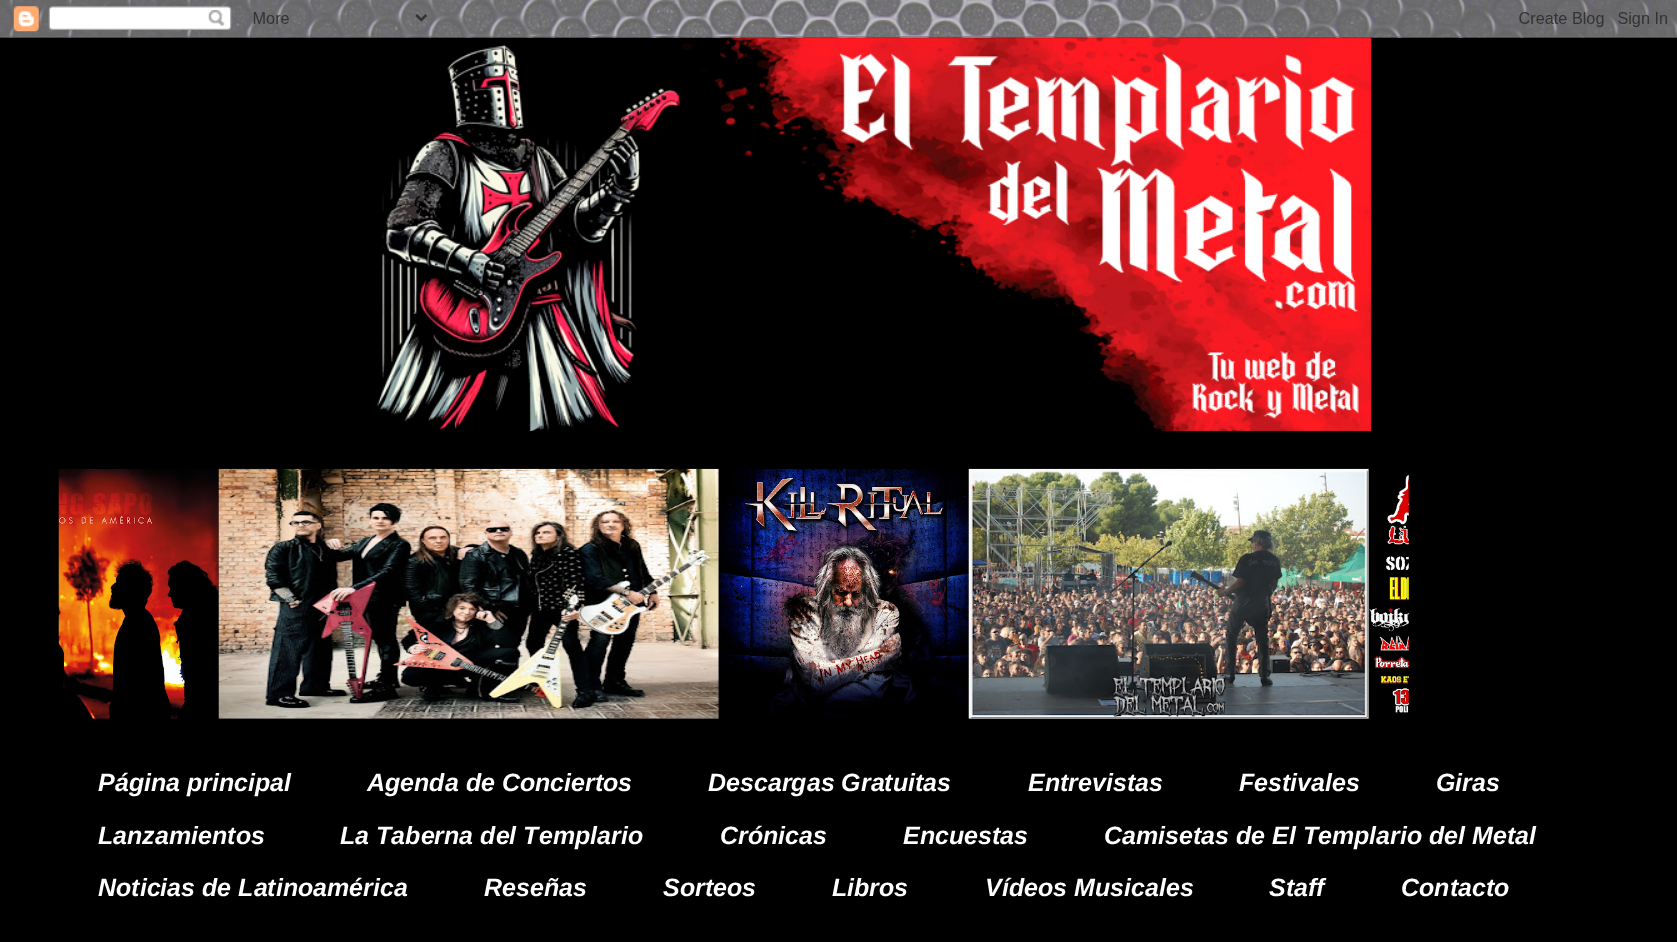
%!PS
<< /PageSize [1677 942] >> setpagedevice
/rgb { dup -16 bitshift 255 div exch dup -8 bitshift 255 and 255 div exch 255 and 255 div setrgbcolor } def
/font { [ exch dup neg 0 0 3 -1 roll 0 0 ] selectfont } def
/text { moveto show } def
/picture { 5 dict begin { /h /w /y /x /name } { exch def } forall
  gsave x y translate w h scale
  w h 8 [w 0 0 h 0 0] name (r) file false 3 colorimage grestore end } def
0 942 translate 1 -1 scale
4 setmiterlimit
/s1 { /LiberationSans-BoldItalic 25 font 16#FFFFFF rgb } def
16#FFFFFF rgb
0 0 1677 942 rectfill
(pic1.raw) 0 0 1677 38 picture
16#000000 rgb
0 38 1677 904 rectfill
(pic3.raw) 307 37 1065 394 picture
(pic2.raw) 0 0 1677 38 picture
(pic4.raw) 58 469 161 250 picture
(pic5.raw) 218 468 501 251 picture
(pic6.raw) 718 468 251 251 picture
(pic7.raw) 968 468 401 251 picture
(pic8.raw) 1368 469 41 250 picture
s1
(Página principal) 98 791 text
(Agenda de Conciertos) 367 791 text
(Descargas Gratuitas) 708 791 text
(Entrevistas) 1028 791 text
(Festivales) 1239 791 text
(Giras) 1436 791 text
(Lanzamientos) 98 844 text
(La Taberna del Templario) 340 844 text
(Crónicas) 720 844 text
(Encuestas) 903 844 text
(Camisetas de El Templario del Metal) 1104 844 text
(Noticias de Latinoamérica) 98 896 text
(Reseñas) 484 896 text
(Sorteos) 663 896 text
(Libros) 832 896 text
(Vídeos Musicales) 985 896 text
(Staff) 1269 896 text
(Contacto) 1401 896 text
showpage
